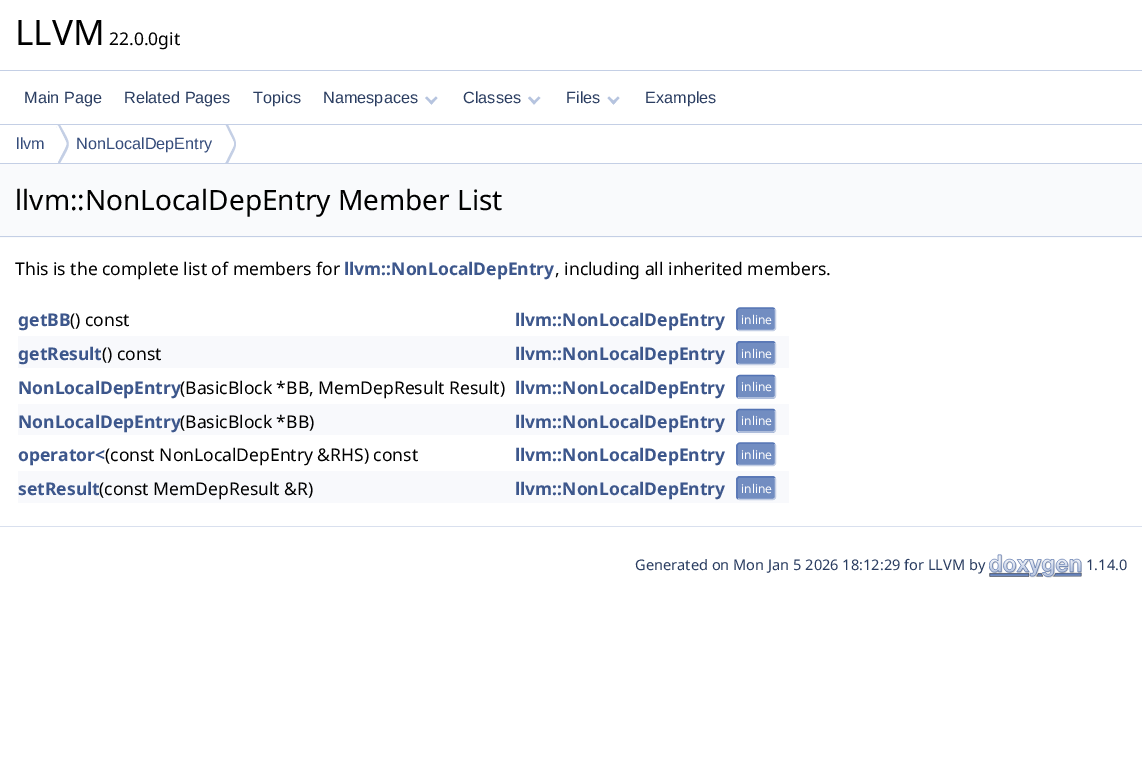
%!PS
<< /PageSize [1142 781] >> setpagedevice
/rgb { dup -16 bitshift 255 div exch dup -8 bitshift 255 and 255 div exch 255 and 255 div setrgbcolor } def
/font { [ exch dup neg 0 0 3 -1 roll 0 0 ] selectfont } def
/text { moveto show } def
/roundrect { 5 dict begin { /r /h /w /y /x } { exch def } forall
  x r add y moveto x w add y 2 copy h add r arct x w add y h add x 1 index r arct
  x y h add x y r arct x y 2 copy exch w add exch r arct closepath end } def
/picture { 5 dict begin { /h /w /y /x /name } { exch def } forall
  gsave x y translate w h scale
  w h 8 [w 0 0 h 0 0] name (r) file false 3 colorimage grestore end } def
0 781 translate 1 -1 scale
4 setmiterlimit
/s1 { /NotoSans-Regular 35 font 16#000000 rgb } def
/s2 { /NotoSans-Regular 17.5 font 16#000000 rgb } def
/s3 { /LiberationSans-Regular 16.25 font 16#2A3D61 rgb } def
/s4 { /LiberationSans-Regular 16.25 font 16#354C7B rgb } def
/s5 { /NotoSans-Regular 28 font 16#000000 rgb } def
/s6 { /NotoSans-Bold 17.5 font 16#3D578C rgb } def
/s7 { /NotoSans-Regular 12 font 16#FFFFFF rgb } def
/s8 { /NotoSans-Regular 14.6 font 16#2A3D61 rgb } def
16#FFFFFF rgb
0 0 1142 781 rectfill
16#C4CFE5 rgb
0 70 1142 1 rectfill
s1
(LLVM) 15 45 text
s2
(22.0.0git) 109 45 text
16#C4CFE5 rgb
0 124 1142 1 rectfill
s3
(Main Page) 24 103 text
(Related Pages) 124 103 text
(Topics) 253 103 text
(Namespaces) 323 103 text
16#B6C4DF rgb
436 96.5 moveto 437.5 98 lineto 431.5 104.5 lineto 429.5 102.5 lineto closepath fill
427 96.5 moveto 433 102.5 lineto 431.5 104.5 lineto 425 98 lineto closepath fill
s3
(Classes) 463 103 text
16#B6C4DF rgb
538.5 96.5 moveto 540.5 98 lineto 534 104.5 lineto 532.5 102.5 lineto closepath fill
530 96.5 moveto 536 102.5 lineto 534 104.5 lineto 528 98 lineto closepath fill
s3
(Files) 566 103 text
16#B6C4DF rgb
618 96.5 moveto 619.5 98 lineto 613.5 104.5 lineto 611.5 102.5 lineto closepath fill
609 96.5 moveto 615.5 102.5 lineto 613.5 104.5 lineto 607.5 98 lineto closepath fill
s3
(Examples) 645 103 text
16#C4CFE5 rgb
0 163 1142 1 rectfill
s4
(llvm) 16 149 text
gsave
0 125 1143 38 rectclip
16#C4CFE5 rgb
59 123 moveto 57 125 57 127 56 130 curveto 58 125 lineto 69 148 69 140 58 162 curveto 59 165 lineto 72 141 72 147 59 123 curveto closepath fill
grestore
16#FFFFFF rgb
57.5 125 moveto 66 142 lineto 66.5 143 66.5 144.5 66 145.5 curveto 57.5 162.5 lineto 52.5 152 52.5 135.5 57.5 125 curveto closepath fill
s4
(NonLocalDepEntry) 76 149 text
gsave
0 125 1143 38 rectclip
16#C4CFE5 rgb
227 123 moveto 225 125 lineto 237 148 237 140 225 162 curveto 227 165 lineto 239 141 239 147 227 123 curveto closepath fill
grestore
16#FFFFFF rgb
225.5 125 moveto 233.5 142 lineto 234 143 234 144.5 233.5 145.5 curveto 225.5 162.5 lineto 220 152 220 135.5 225.5 125 curveto closepath fill
16#F9FAFC rgb
0 164 1142 74 rectfill
16#C4CFE5 rgb
0 236 1142 1 rectfill
s5
(llvm::NonLocalDepEntry Member List) 15 210 text
s2
(This is the complete list of members for) 15 275 text
s6
(llvm::NonLocalDepEntry) 344 275 text
s2
(, including all inherited members.) 555 275 text
s6
(getBB) 18 326 text
s2
(\(\) const) 70 326 text
s6
(llvm::NonLocalDepEntry) 515 326 text
16#728DC1 rgb
736 308 40 23 4 roundrect fill
16#C4CFE5 rgb
1.2 setlinewidth
774.5 309 moveto 775.5 309.5 775.5 310.5 775.5 311 curveto 775.5 327.5 lineto 775.5 328.5 775.5 329 774.5 329.5 curveto 774 330.5 773.5 330.5 772.5 330.5 curveto 740 330.5 lineto 739 330.5 738.5 330.5 738 329.5 curveto stroke
16#5373B4 rgb
738 329.5 moveto 737 329 737 328.5 737 327.5 curveto 737 311 lineto 737 310.5 737 309.5 738 309 curveto 738.5 308.5 739 308 740 308 curveto 772.5 308 lineto 773.5 308 774 308.5 774.5 309 curveto stroke
s7
(inline) 741 324 text
16#F8F9FC rgb
18 336 771 32 rectfill
s6
(getResult) 18 360 text
s2
(\(\) const) 102 360 text
s6
(llvm::NonLocalDepEntry) 515 360 text
16#728DC1 rgb
736 341 40 24 4 roundrect fill
16#C4CFE5 rgb
774.5 343 moveto 775.5 343.5 775.5 344 775.5 345 curveto 775.5 361 lineto 775.5 362 775.5 363 774.5 363.5 curveto 774 364 773.5 364.5 772.5 364.5 curveto 740 364.5 lineto 739 364.5 738.5 364 738 363.5 curveto stroke
16#5373B4 rgb
738 363.5 moveto 737 363 737 362 737 361 curveto 737 345 lineto 737 344 737 343.5 738 343 curveto 738.5 342 739 342 740 342 curveto 772.5 342 lineto 773.5 342 774 342 774.5 343 curveto stroke
s7
(inline) 741 358 text
s6
(NonLocalDepEntry) 18 394 text
s2
(\(BasicBlock *BB, MemDepResult Result\)) 180 394 text
s6
(llvm::NonLocalDepEntry) 515 394 text
16#728DC1 rgb
736 375 40 24 4 roundrect fill
16#C4CFE5 rgb
774.5 376.5 moveto 775.5 377 775.5 378 775.5 379 curveto 775.5 395 lineto 775.5 396 775.5 396.5 774.5 397 curveto 774 398 773.5 398 772.5 398 curveto 740 398 lineto 739 398 738.5 398 738 397 curveto stroke
16#5373B4 rgb
738 397 moveto 737 396.5 737 396 737 395 curveto 737 379 lineto 737 378 737 377 738 376.5 curveto 738.5 376 739 375.5 740 375.5 curveto 772.5 375.5 lineto 773.5 375.5 774 376 774.5 376.5 curveto stroke
s7
(inline) 741 391 text
16#F8F9FC rgb
18 404 771 31 rectfill
s6
(NonLocalDepEntry) 18 428 text
s2
(\(BasicBlock *BB\)) 180 428 text
s6
(llvm::NonLocalDepEntry) 515 428 text
16#728DC1 rgb
736 409 40 24 4 roundrect fill
16#C4CFE5 rgb
774.5 410.5 moveto 775.5 411 775.5 411.5 775.5 412.5 curveto 775.5 429 lineto 775.5 429.5 775.5 430.5 774.5 431 curveto 774 431.5 773.5 432 772.5 432 curveto 740 432 lineto 739 432 738.5 431.5 738 431 curveto stroke
16#5373B4 rgb
738 431 moveto 737 430.5 737 429.5 737 429 curveto 737 412.5 lineto 737 411.5 737 411 738 410.5 curveto 738.5 409.5 739 409.5 740 409.5 curveto 772.5 409.5 lineto 773.5 409.5 774 409.5 774.5 410.5 curveto stroke
s7
(inline) 741 425 text
s6
(operator<) 18 461 text
s2
(\(const NonLocalDepEntry &RHS\) const) 105 461 text
s6
(llvm::NonLocalDepEntry) 515 461 text
16#728DC1 rgb
736 443 40 23 4 roundrect fill
16#C4CFE5 rgb
774.5 444 moveto 775.5 444.5 775.5 445.5 775.5 446 curveto 775.5 462.5 lineto 775.5 463.5 775.5 464 774.5 464.5 curveto 774 465.5 773.5 465.5 772.5 465.5 curveto 740 465.5 lineto 739 465.5 738.5 465.5 738 464.5 curveto stroke
16#5373B4 rgb
738 464.5 moveto 737 464 737 463.5 737 462.5 curveto 737 446 lineto 737 445.5 737 444.5 738 444 curveto 738.5 443.5 739 443 740 443 curveto 772.5 443 lineto 773.5 443 774 443.5 774.5 444 curveto stroke
s7
(inline) 741 459 text
16#F8F9FC rgb
18 471 771 32 rectfill
s6
(setResult) 18 495 text
s2
(\(const MemDepResult &R\)) 99 495 text
s6
(llvm::NonLocalDepEntry) 515 495 text
16#728DC1 rgb
736 476 40 24 4 roundrect fill
16#C4CFE5 rgb
774.5 478 moveto 775.5 478.5 775.5 479 775.5 480 curveto 775.5 496 lineto 775.5 497 775.5 498 774.5 498.5 curveto 774 499 773.5 499.5 772.5 499.5 curveto 740 499.5 lineto 739 499.5 738.5 499 738 498.5 curveto stroke
16#5373B4 rgb
738 498.5 moveto 737 498 737 497 737 496 curveto 737 480 lineto 737 479 737 478.5 738 478 curveto 738.5 477 739 477 740 477 curveto 772.5 477 lineto 773.5 477 774 477 774.5 478 curveto stroke
s7
(inline) 741 493 text
16#D9E0EE rgb
-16 526 moveto -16 527 lineto 1126 527 lineto 1126 526 lineto 0 526 lineto closepath fill
1126 526 16 1 rectfill
s8
(Generated on Mon Jan 5 2026 18:12:29 for LLVM by) 635 570 text
(pic1.raw) 989 554 93 24 picture
(1.14.0) 1086 570 text
showpage
